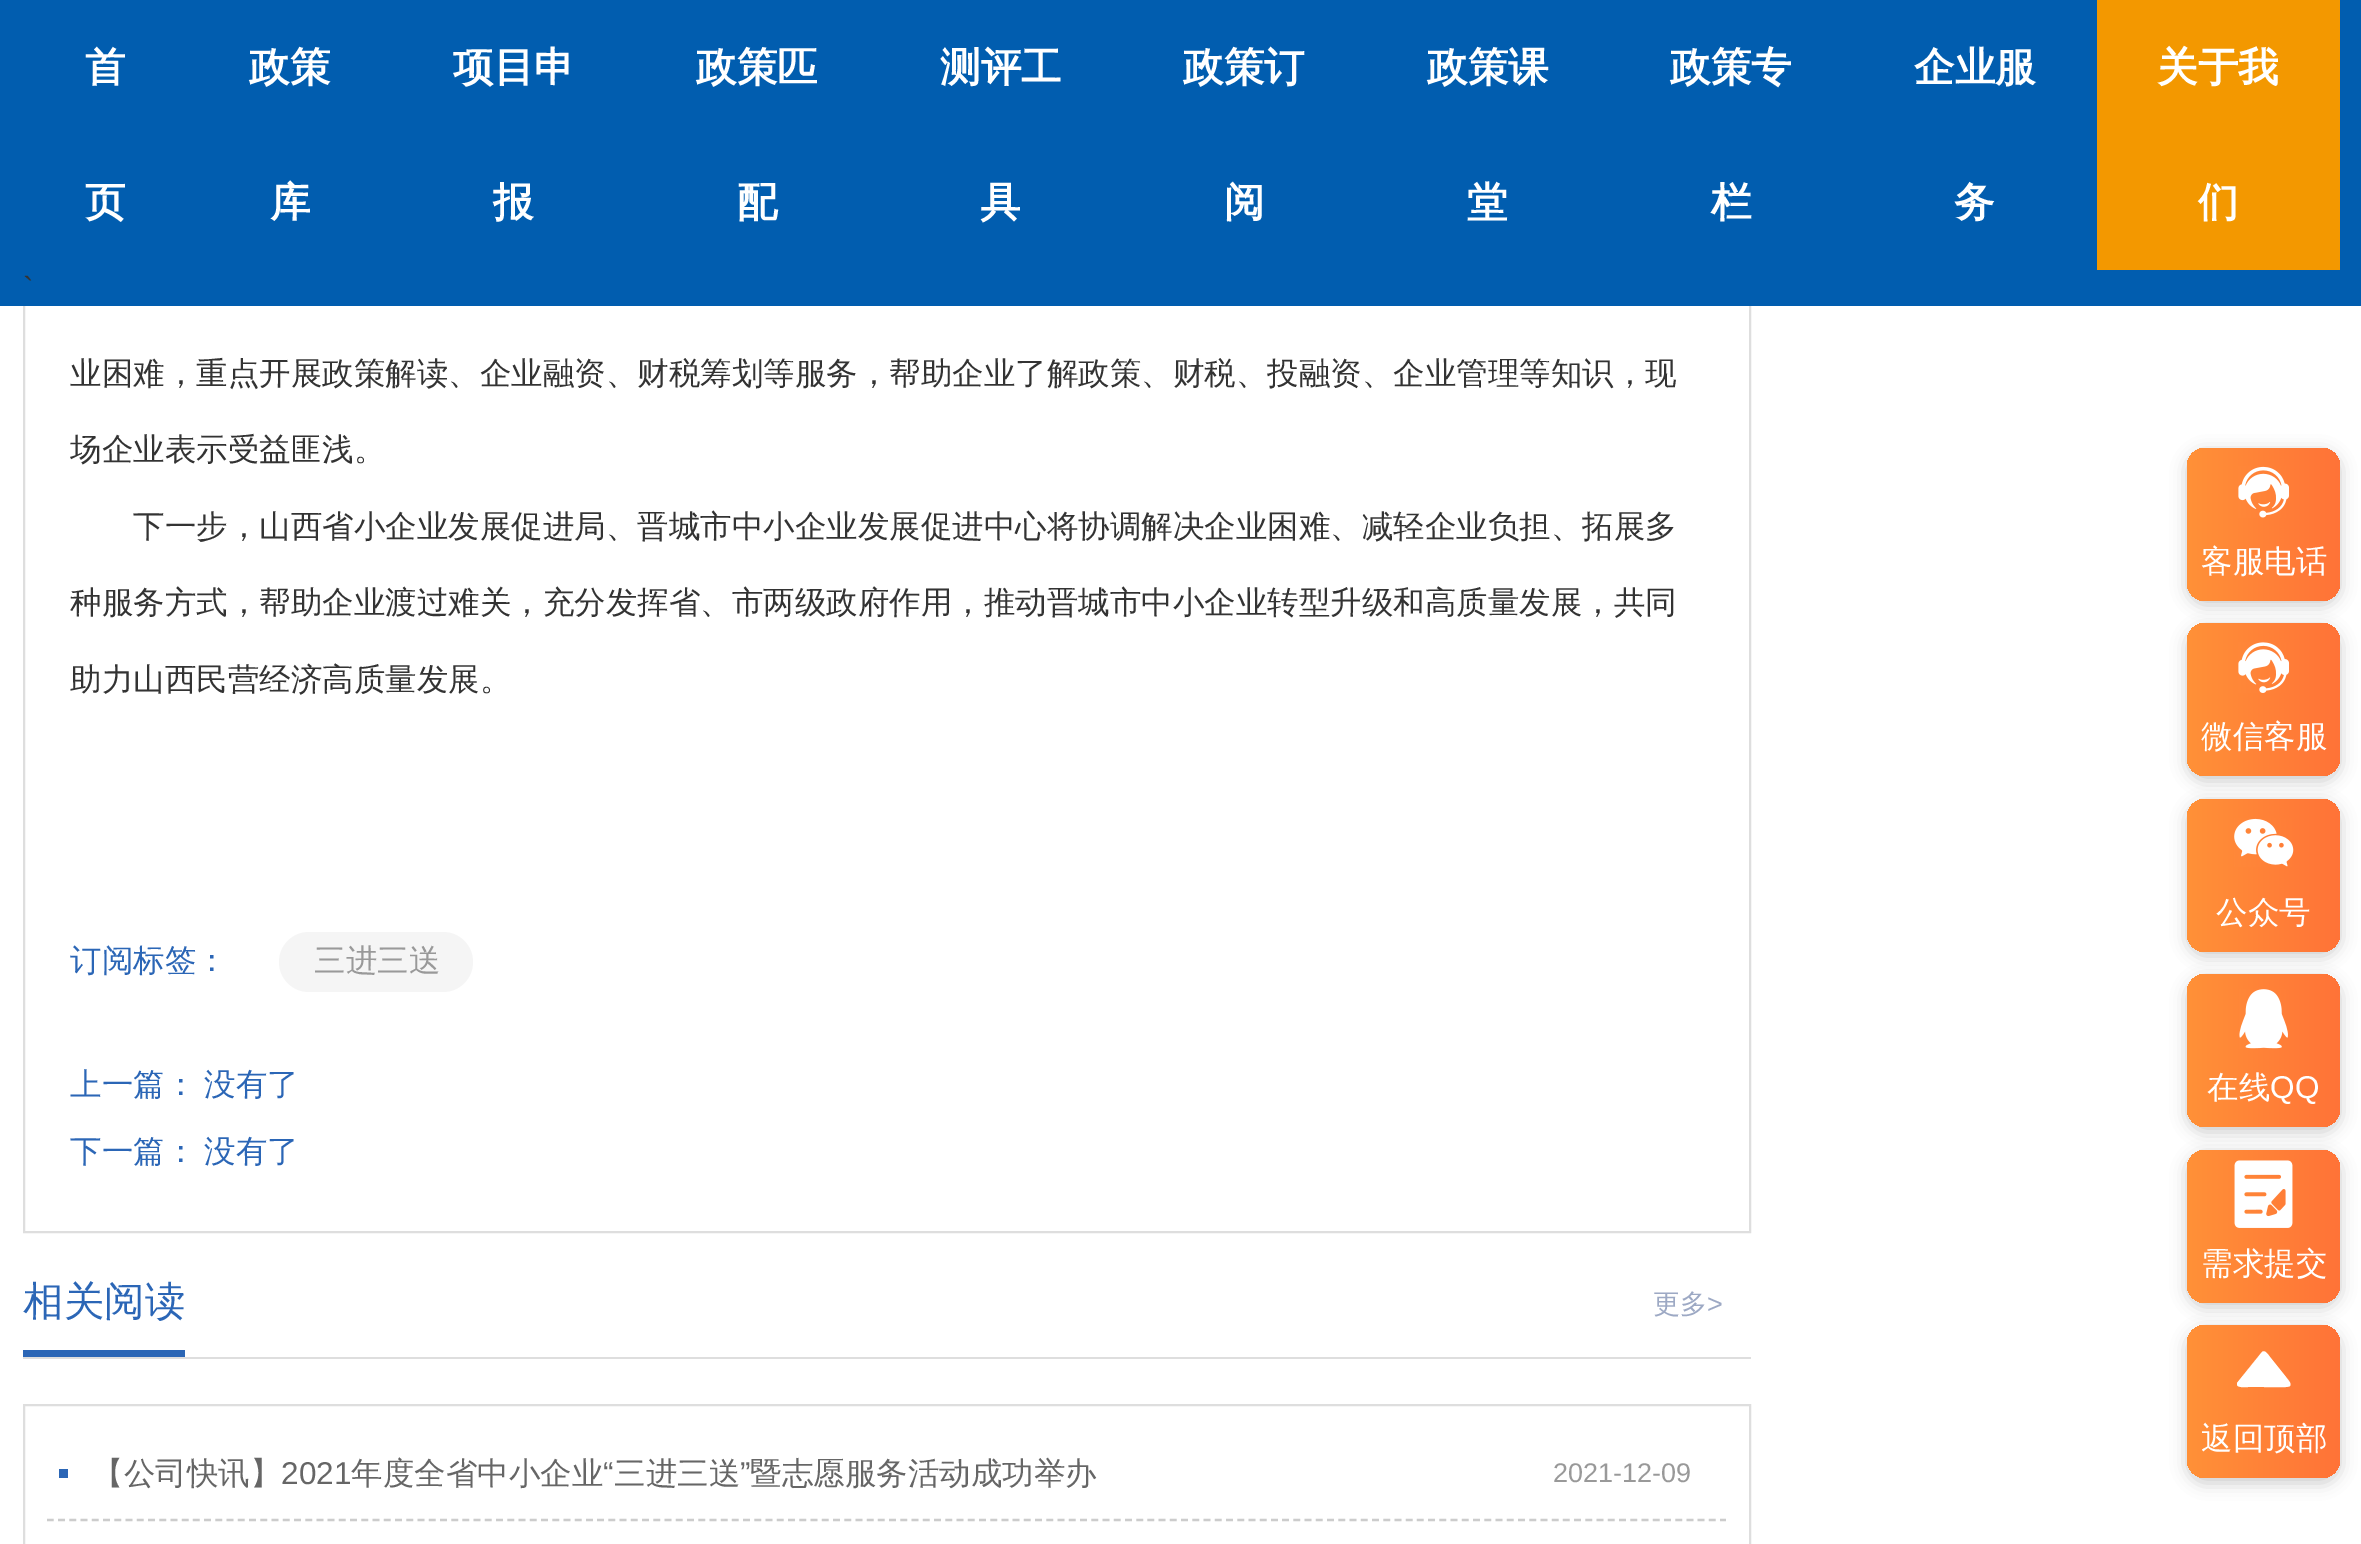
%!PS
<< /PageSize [2361 1544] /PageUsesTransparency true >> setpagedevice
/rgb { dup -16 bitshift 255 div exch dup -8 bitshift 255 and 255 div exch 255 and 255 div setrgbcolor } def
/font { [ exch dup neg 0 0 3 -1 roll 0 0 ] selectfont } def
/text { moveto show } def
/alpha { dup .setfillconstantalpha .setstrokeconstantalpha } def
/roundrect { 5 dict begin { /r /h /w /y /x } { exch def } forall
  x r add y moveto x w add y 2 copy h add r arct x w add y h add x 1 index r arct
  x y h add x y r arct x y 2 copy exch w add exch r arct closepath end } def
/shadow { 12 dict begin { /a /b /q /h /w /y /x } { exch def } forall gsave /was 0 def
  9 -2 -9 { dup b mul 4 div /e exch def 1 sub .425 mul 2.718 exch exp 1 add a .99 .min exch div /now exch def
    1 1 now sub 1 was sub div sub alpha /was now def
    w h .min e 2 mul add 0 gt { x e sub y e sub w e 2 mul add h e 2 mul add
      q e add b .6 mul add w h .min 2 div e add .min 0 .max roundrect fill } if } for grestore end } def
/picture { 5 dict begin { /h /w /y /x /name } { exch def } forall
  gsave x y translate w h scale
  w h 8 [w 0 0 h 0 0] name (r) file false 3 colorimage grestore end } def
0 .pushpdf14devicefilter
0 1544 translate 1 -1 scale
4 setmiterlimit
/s1 { /WenQuanYiZenHei-Bold 40.5 font 16#FFFFFF rgb } def
/s2 { /LiberationSans-Regular 31.5 font 16#333333 rgb } def
/s3 { /WenQuanYiZenHei-Medium 31.5 font 16#333333 rgb } def
/s4 { /WenQuanYiZenHei-Medium 31.5 font 16#2B66B6 rgb } def
/s5 { /WenQuanYiZenHei-Medium 31.5 font 16#999999 rgb } def
/s6 { /WenQuanYiZenHei-Medium 40.5 font 16#2B66B6 rgb } def
/s7 { /WenQuanYiZenHei-Medium 27 font 16#9DA9C4 rgb } def
/s8 { /LiberationSans-Regular 27 font 16#9DA9C4 rgb } def
/s9 { /WenQuanYiZenHei-Medium 31.5 font 16#666666 rgb } def
/s10 { /LiberationSans-Regular 31.5 font 16#666666 rgb } def
/s11 { /LiberationSans-Regular 27 font 16#999999 rgb } def
/s12 { /WenQuanYiZenHei-Medium 31.5 font 16#FFFFFF rgb } def
/s13 { /LiberationSans-Regular 31.5 font 16#FFFFFF rgb } def
16#FFFFFF rgb
0 0 2361 1544 rectfill
16#DEDEDE rgb
2 setlinewidth
24 -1 1726 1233 rectstroke
16#015DAF rgb
0 0 2361 306 rectfill
s1
(首) 85 81 text
(页) 85 216 text
(政策) 249 81 text
(库) 270 216 text
(项目申) 453 81 text
(报) 493 216 text
(政策匹) 696 81 text
(配) 737 216 text
(测评工) 940 81 text
(具) 980 216 text
(政策订) 1183 81 text
(阅) 1224 216 text
(政策课) 1427 81 text
(堂) 1467 216 text
(政策专) 1670 81 text
(栏) 1711 216 text
(企业服) 1914 81 text
(务) 1954 216 text
16#F39800 rgb
2097 0 243 270 rectfill
s1
(关于我) 2157 81 text
(们) 2198 216 text
s2
(`) 23 299 text
s3
(业困难，重点开展政策解读、企业融资、财税筹划等服务，帮助企业了解政策、财税、投融资、企业管理等知识，现) 70 384 text
(场企业表示受益匪浅。) 70 460 text
(下一步，山西省小企业发展促进局、晋城市中小企业发展促进中心将协调解决企业困难、减轻企业负担、拓展多) 133 537 text
(种服务方式，帮助企业渡过难关，充分发挥省、市两级政府作用，推动晋城市中小企业转型升级和高质量发展，共同) 70 613 text
(助力山西民营经济高质量发展。) 70 690 text
s4
(订阅标签：) 70 971 text
16#F5F5F5 rgb
279 932 194 60 30 roundrect fill
s5
(三进三送) 314 971 text
s4
(上一篇：) 70 1095 text
(没有了) 204 1095 text
(下一篇：) 70 1162 text
(没有了) 204 1162 text
16#DEDEDE rgb
23 1357 1728 2 rectfill
16#2B66B6 rgb
23 1350 162 7 rectfill
s6
(相关阅读) 23 1315 text
s7
(更多) 1653 1313 text
s8
(>) 1707 1313 text
16#DEDEDE rgb
24 1405 1726 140 rectstroke
16#CCCCCC rgb
2.2 setlinewidth
[6.75 4.48] 0 setdash
47 1520 moveto 1726 1520 lineto stroke
16#2B66B6 rgb
59 1469 9 9 rectfill
s9
(【公司快讯】) 92 1484 text
s10
(2021) 281 1484 text
s9
(年度全省中小企业) 351 1484 text
s10
(“) 603 1484 text
s9
(三进三送) 614 1484 text
s10
(”) 740 1484 text
s9
(暨志愿服务活动成功举办) 750 1484 text
s11
(2021-12-09) 1553 1482 text
16#000000 rgb
2187 452 153 153 18 8 0.2 shadow
gsave 2187 448 153 153 18 roundrect clip newpath
<< /ShadingType 2 /ColorSpace /DeviceRGB /Coords [2340 524 2187 524] /Extend [true true] /Function << /FunctionType 2 /Domain [0 1] /C0 [1 0.451 0.216] /C1 [1 0.569 0.22] /N 1 >> >> shfill grestore
(pic1.raw) 2238 466 52 52 picture
s12
(客服电话) 2201 572 text
16#000000 rgb
2187 628 153 153 18 8 0.2 shadow
gsave 2187 623 153 153 18 roundrect clip newpath
<< /ShadingType 2 /ColorSpace /DeviceRGB /Coords [2340 700 2187 700] /Extend [true true] /Function << /FunctionType 2 /Domain [0 1] /C0 [1 0.451 0.216] /C1 [1 0.569 0.22] /N 1 >> >> shfill grestore
(pic2.raw) 2238 642 52 51 picture
s12
(微信客服) 2201 747 text
16#000000 rgb
2187 803 153 153 18 8 0.2 shadow
gsave 2187 799 153 153 18 roundrect clip newpath
<< /ShadingType 2 /ColorSpace /DeviceRGB /Coords [2340 875 2187 875] /Extend [true true] /Function << /FunctionType 2 /Domain [0 1] /C0 [1 0.451 0.216] /C1 [1 0.569 0.22] /N 1 >> >> shfill grestore
(pic3.raw) 2234 818 60 49 picture
s12
(公众号) 2216 923 text
16#000000 rgb
2187 979 153 153 18 8 0.2 shadow
gsave 2187 974 153 153 18 roundrect clip newpath
<< /ShadingType 2 /ColorSpace /DeviceRGB /Coords [2340 1051 2187 1051] /Extend [true true] /Function << /FunctionType 2 /Domain [0 1] /C0 [1 0.451 0.216] /C1 [1 0.569 0.22] /N 1 >> >> shfill grestore
(pic4.raw) 2239 989 49 60 picture
s12
(在线) 2207 1098 text
s13
(QQ) 2270 1098 text
16#000000 rgb
2187 1154 153 153 18 8 0.2 shadow
gsave 2187 1150 153 153 18 roundrect clip newpath
<< /ShadingType 2 /ColorSpace /DeviceRGB /Coords [2340 1226 2187 1226] /Extend [true true] /Function << /FunctionType 2 /Domain [0 1] /C0 [1 0.451 0.216] /C1 [1 0.569 0.22] /N 1 >> >> shfill grestore
(pic5.raw) 2234 1160 59 68 picture
s12
(需求提交) 2201 1274 text
16#000000 rgb
2187 1330 153 153 18 8 0.2 shadow
gsave 2187 1325 153 153 18 roundrect clip newpath
<< /ShadingType 2 /ColorSpace /DeviceRGB /Coords [2340 1402 2187 1402] /Extend [true true] /Function << /FunctionType 2 /Domain [0 1] /C0 [1 0.451 0.216] /C1 [1 0.569 0.22] /N 1 >> >> shfill grestore
16#FFFFFF rgb
2262 1352 moveto 2237 1383 lineto 2237 1385 lineto 2238 1388 2247 1387 2248 1387 curveto 2264 1387 lineto 2267 1387 2288 1388 2290 1386 curveto 2292 1383 2287 1379 2286 1377 curveto 2270 1357 lineto 2269 1356 2265 1349 2262 1352 curveto closepath fill
(返回顶部) 2201 1449 text
.poppdf14devicefilter showpage
